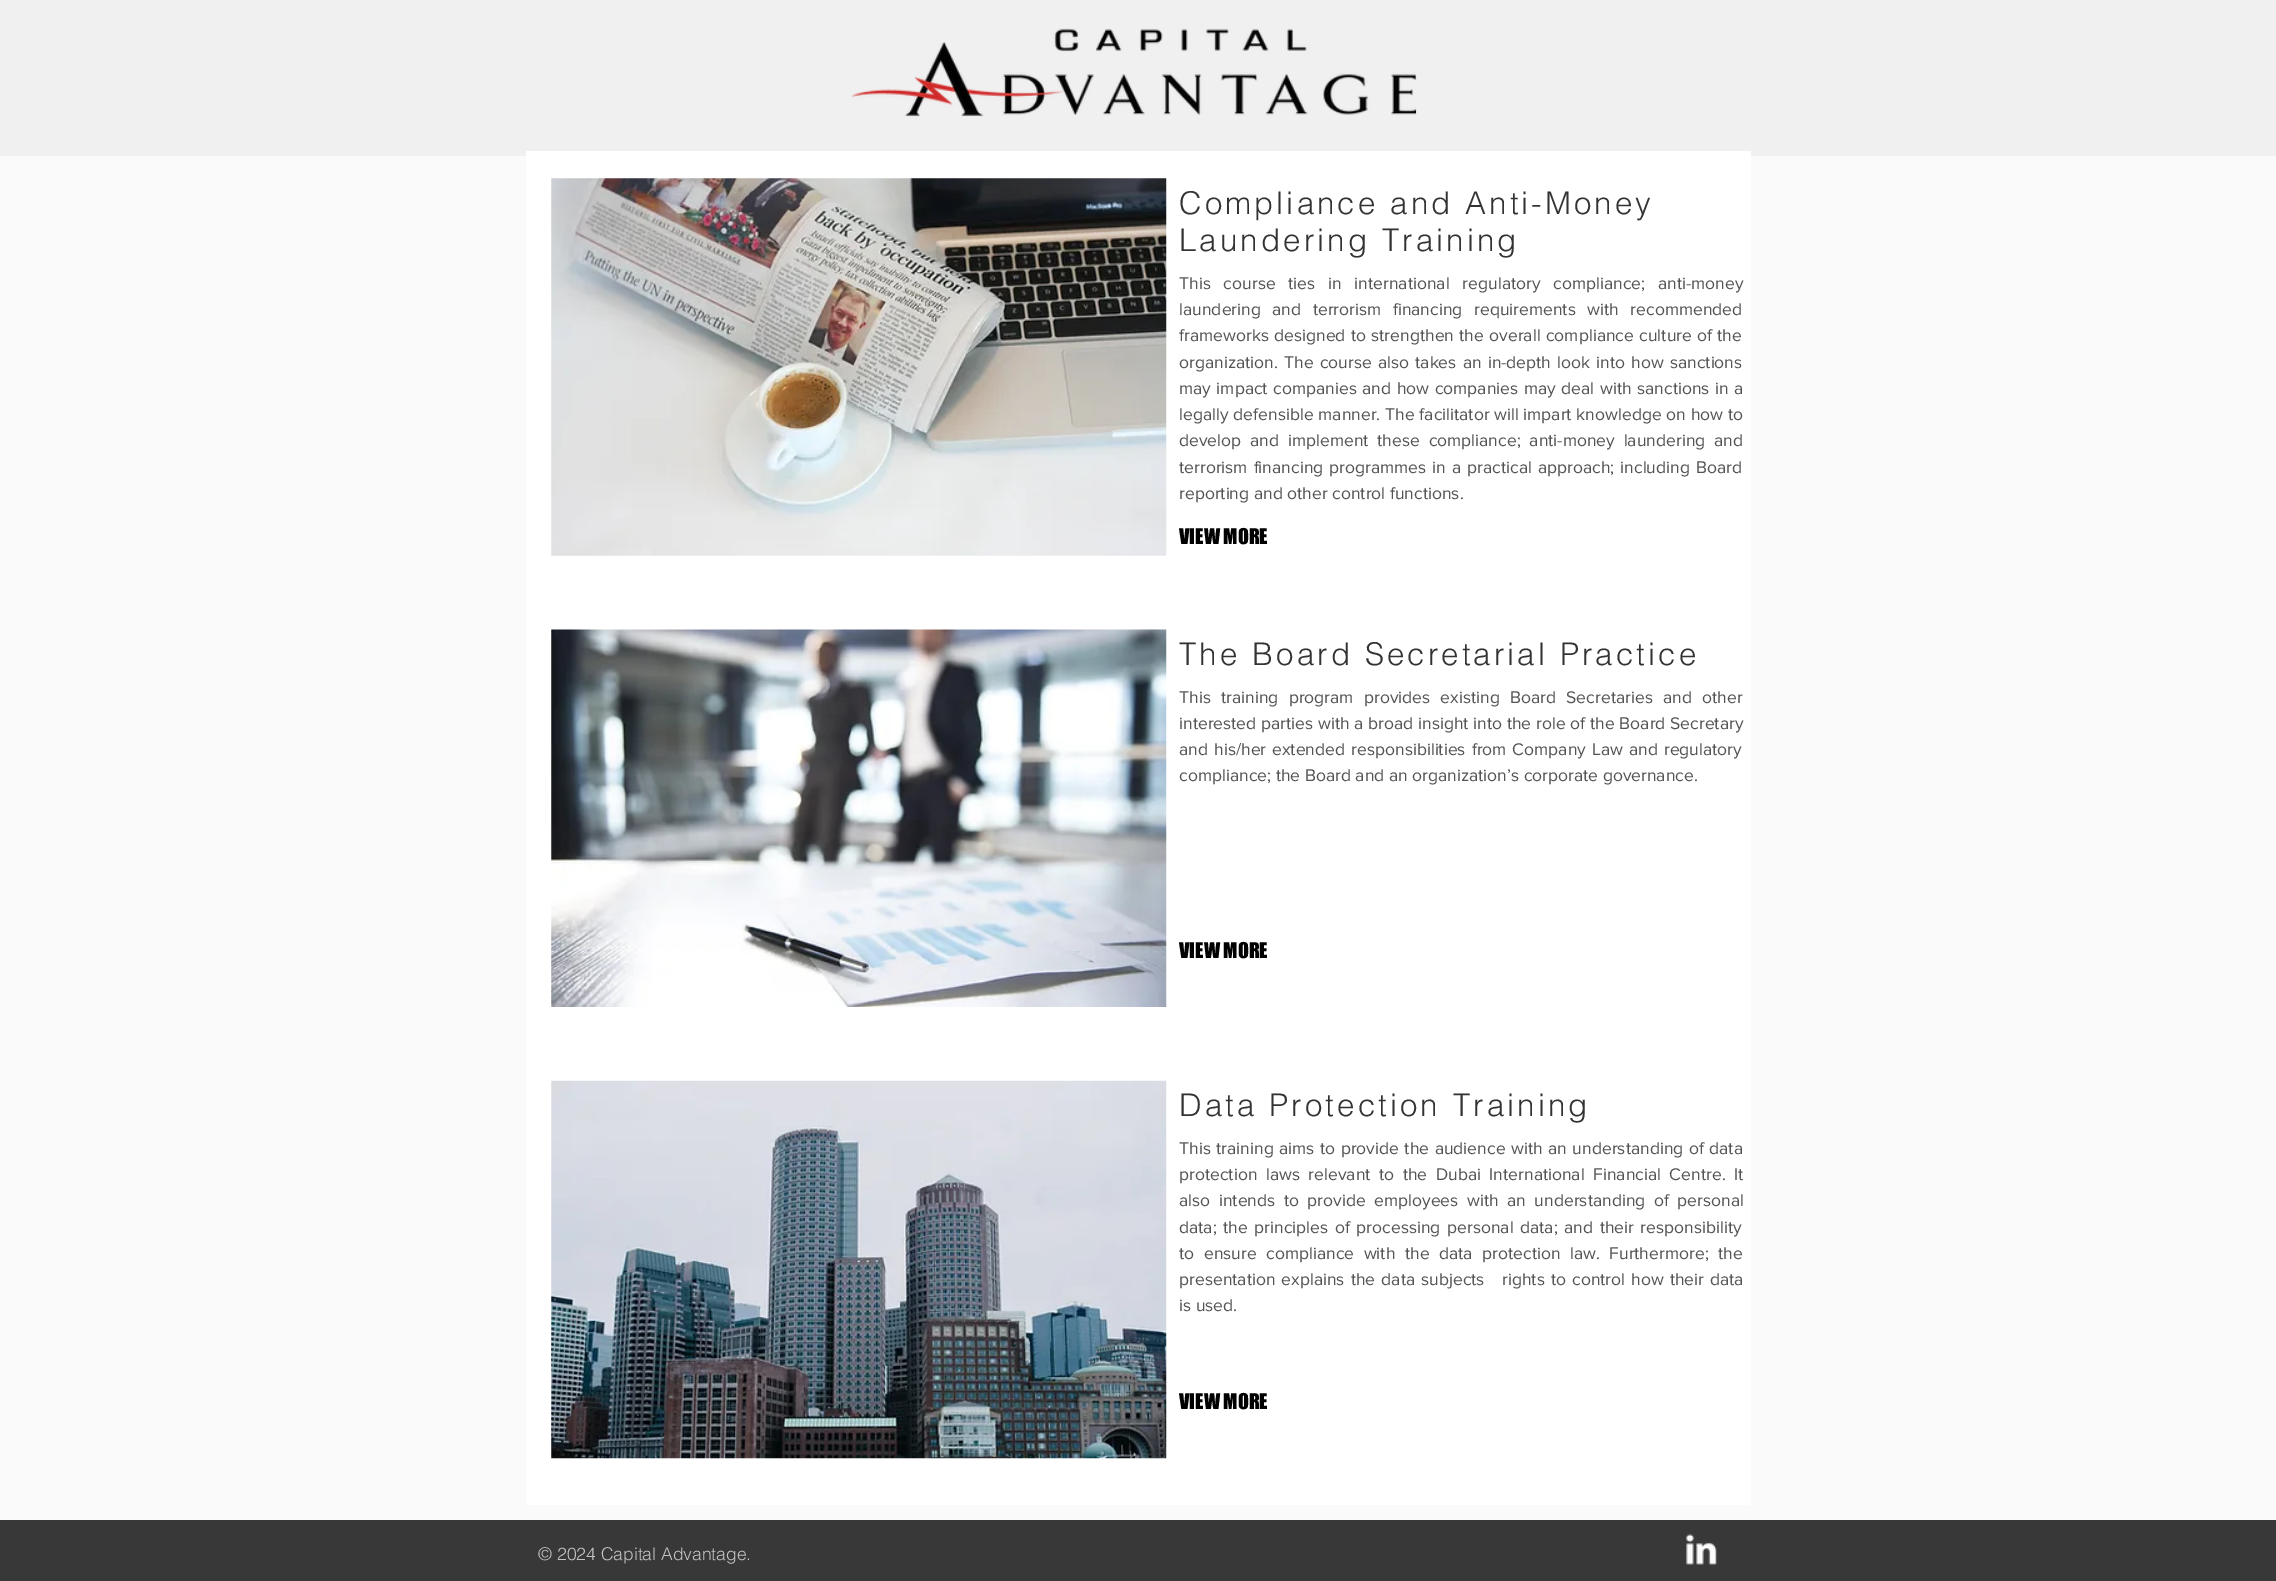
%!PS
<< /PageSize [2276 1581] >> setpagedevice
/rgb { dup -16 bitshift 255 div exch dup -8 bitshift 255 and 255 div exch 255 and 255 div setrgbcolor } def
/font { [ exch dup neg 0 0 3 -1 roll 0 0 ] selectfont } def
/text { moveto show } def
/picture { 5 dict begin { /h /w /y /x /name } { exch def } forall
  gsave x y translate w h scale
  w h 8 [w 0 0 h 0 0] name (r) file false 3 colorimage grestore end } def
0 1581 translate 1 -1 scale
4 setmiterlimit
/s1 { /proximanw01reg-Regular 17.5 font 16#545454 rgb } def
/s2 { /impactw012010-Regular 20 font 16#000000 rgb } def
/s3 { /helvetica-Light 17.5 font 16#C5C3C3 rgb } def
16#FAFAFA rgb
0 0 2276 1581 rectfill
16#F0F0F0 rgb
0 0 2276 156 rectfill
(pic1.raw) 851 28 566 89 picture
16#FFFFFF rgb
526 151 1225 1354 rectfill
(pic2.raw) 551 178 616 378 picture
/helvetica-Light 31.25 font
16#333333 rgb
1179 214 moveto 3.1 0 (Compliance and Anti-Money) ashow
1179 251 moveto 3.1 0 (Laundering Training) ashow
/proximanw01reg-Regular 17.5 font
16#545454 rgb
1179 289 moveto 8.25 0 32 (This course ties in international regulatory compliance; anti-money) widthshow
1179 315 moveto 7 0 32 (laundering and terrorism financing requirements with recommended) widthshow
1179 341 moveto 0.75 0 32 (frameworks designed to strengthen the overall compliance culture of the) widthshow
1179 368 moveto 1.6 0 32 (organization. The course also takes an in-depth look into how sanctions) widthshow
1179 394 moveto 1 0 32 (may impact companies and how companies may deal with sanctions in a) widthshow
1179 420 moveto 0.2 0 32 (legally defensible manner. The facilitator will impart knowledge on how to) widthshow
1179 446 moveto 4.25 0 32 (develop and implement these compliance; anti-money laundering and) widthshow
1179 473 moveto 1.5 0 32 (terrorism financing programmes in a practical approach; including Board) widthshow
(reporting and other control functions.) 1179 499 text
s2
(VIEW MORE) 1179 544 text
(pic3.raw) 551 629 616 378 picture
/helvetica-Light 31.25 font
16#333333 rgb
1179 665 moveto 3.1 0 (The Board Secretarial Practice) ashow
/proximanw01reg-Regular 17.5 font
16#545454 rgb
1179 703 moveto 5.75 0 32 (This training program provides existing Board Secretaries and other) widthshow
1179 729 moveto 0.2 0 32 (interested parties with a broad insight into the role of the Board Secretary) widthshow
1179 755 moveto 1.5 0 32 (and his/her extended responsibilities from Company Law and regulatory) widthshow
(compliance; the Board and an organization’s corporate governance.) 1179 781 text
s2
(VIEW MORE) 1179 958 text
(pic4.raw) 551 1080 616 379 picture
/helvetica-Light 31.25 font
16#333333 rgb
1179 1116 moveto 3.1 0 (Data Protection Training) ashow
/proximanw01reg-Regular 17.5 font
16#545454 rgb
1179 1154 moveto 1 0 32 (This training aims to provide the audience with an understanding of data) widthshow
1179 1180 moveto 4 0 32 (protection laws relevant to the Dubai International Financial Centre. It) widthshow
1179 1206 moveto 4 0 32 (also intends to provide employees with an understanding of personal) widthshow
1179 1233 moveto 2 0 32 (data; the principles of processing personal data; and their responsibility) widthshow
1179 1259 moveto 5 0 32 (to ensure compliance with the data protection law. Furthermore; the) widthshow
1179 1285 moveto 1.5 0 32 (presentation explains the data subjects) widthshow
1502 1285 moveto 1.5 0 32 (rights to control how their data) widthshow
(is used.) 1179 1311 text
s2
(VIEW MORE) 1179 1409 text
16#383838 rgb
0 1520 2276 61 rectfill
s3
(© 2024 Capital Advantage.) 538 1560 text
(pic5.raw) 1686 1534 31 31 picture
showpage
